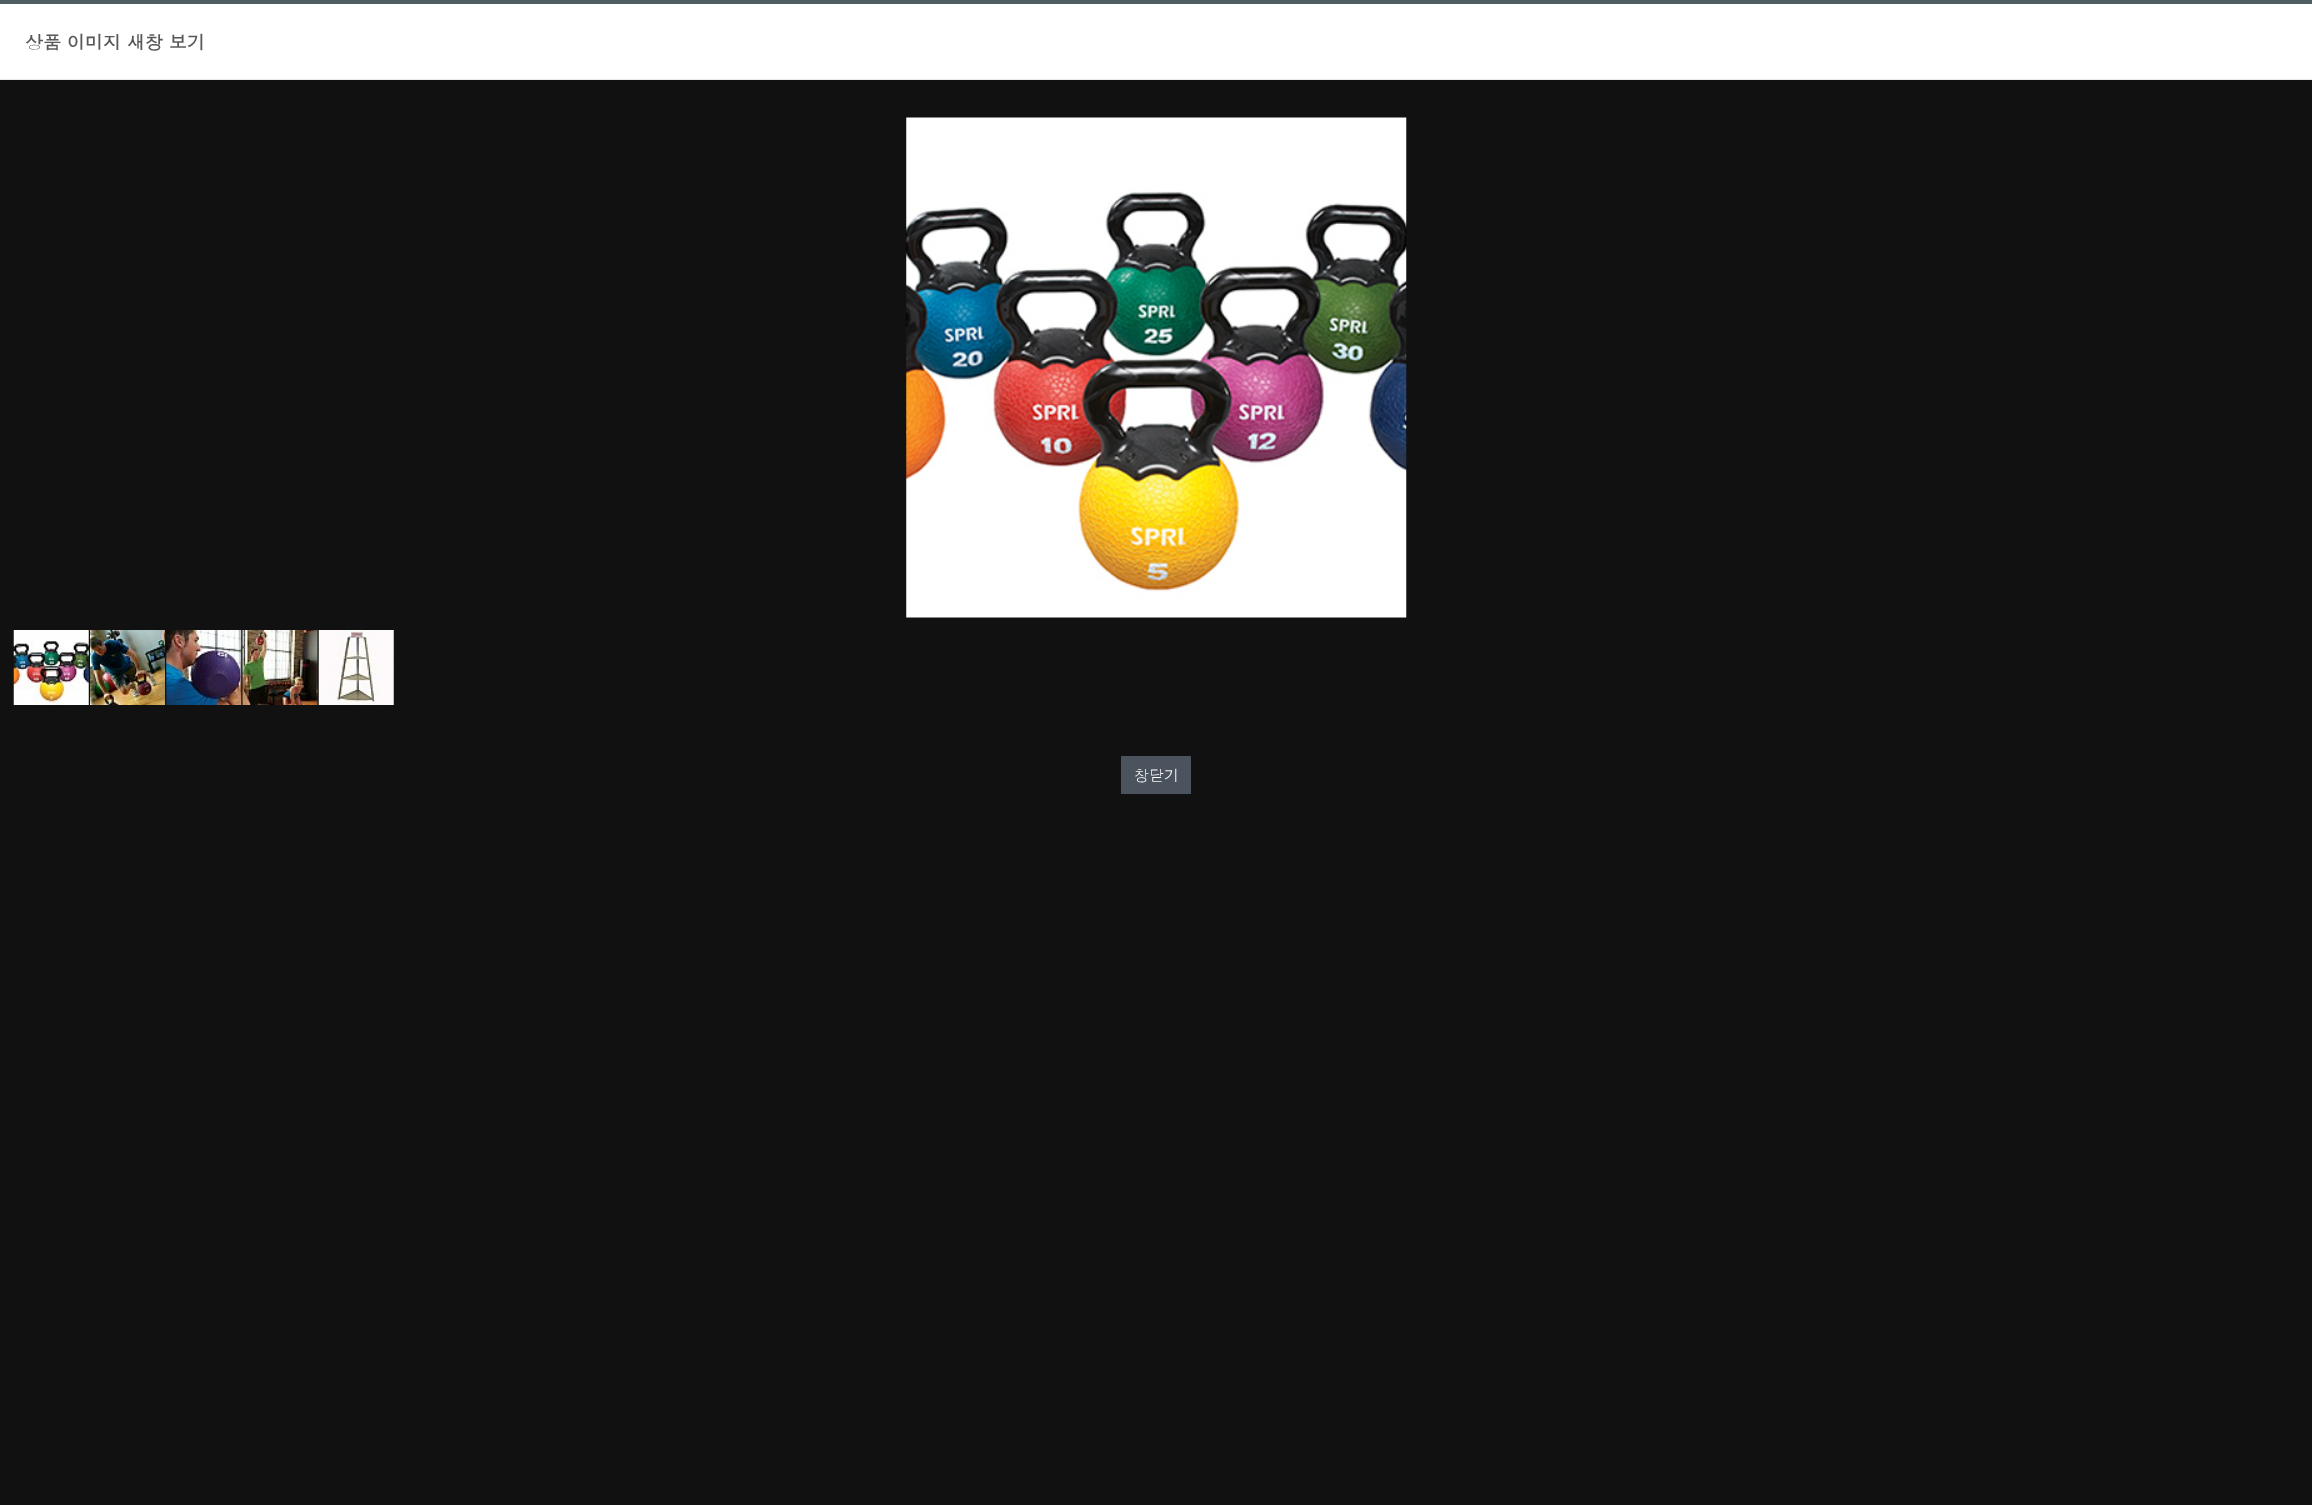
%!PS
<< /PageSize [2312 1505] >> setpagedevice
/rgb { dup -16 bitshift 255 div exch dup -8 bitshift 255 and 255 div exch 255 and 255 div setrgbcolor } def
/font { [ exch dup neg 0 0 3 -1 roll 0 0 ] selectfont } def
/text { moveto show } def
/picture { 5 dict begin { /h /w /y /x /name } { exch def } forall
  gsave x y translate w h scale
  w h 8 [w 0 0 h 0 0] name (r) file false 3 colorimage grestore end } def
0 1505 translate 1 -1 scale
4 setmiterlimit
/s1 { /Dotum-Bold 18 font 16#585858 rgb } def
/s2 { /Dotum-Regular 15 font 16#FFFFFF rgb } def
16#111111 rgb
0 0 2312 1505 rectfill
16#FFFFFF rgb
0 4 2312 75 rectfill
16#4E5D60 rgb
0 0 2312 4 rectfill
16#E9E9E9 rgb
0 79 2312 1 rectfill
s1
(상품 이미지 새창 보기) 25 49 text
(pic1.raw) 906 117 501 501 picture
(pic2.raw) 13 630 76 75 picture
(pic3.raw) 90 630 75 75 picture
(pic4.raw) 166 630 76 75 picture
(pic5.raw) 242 630 76 75 picture
(pic6.raw) 318 630 76 75 picture
16#4B545E rgb
1121 756 70 38 rectfill
s2
(창닫기) 1134 781 text
showpage
